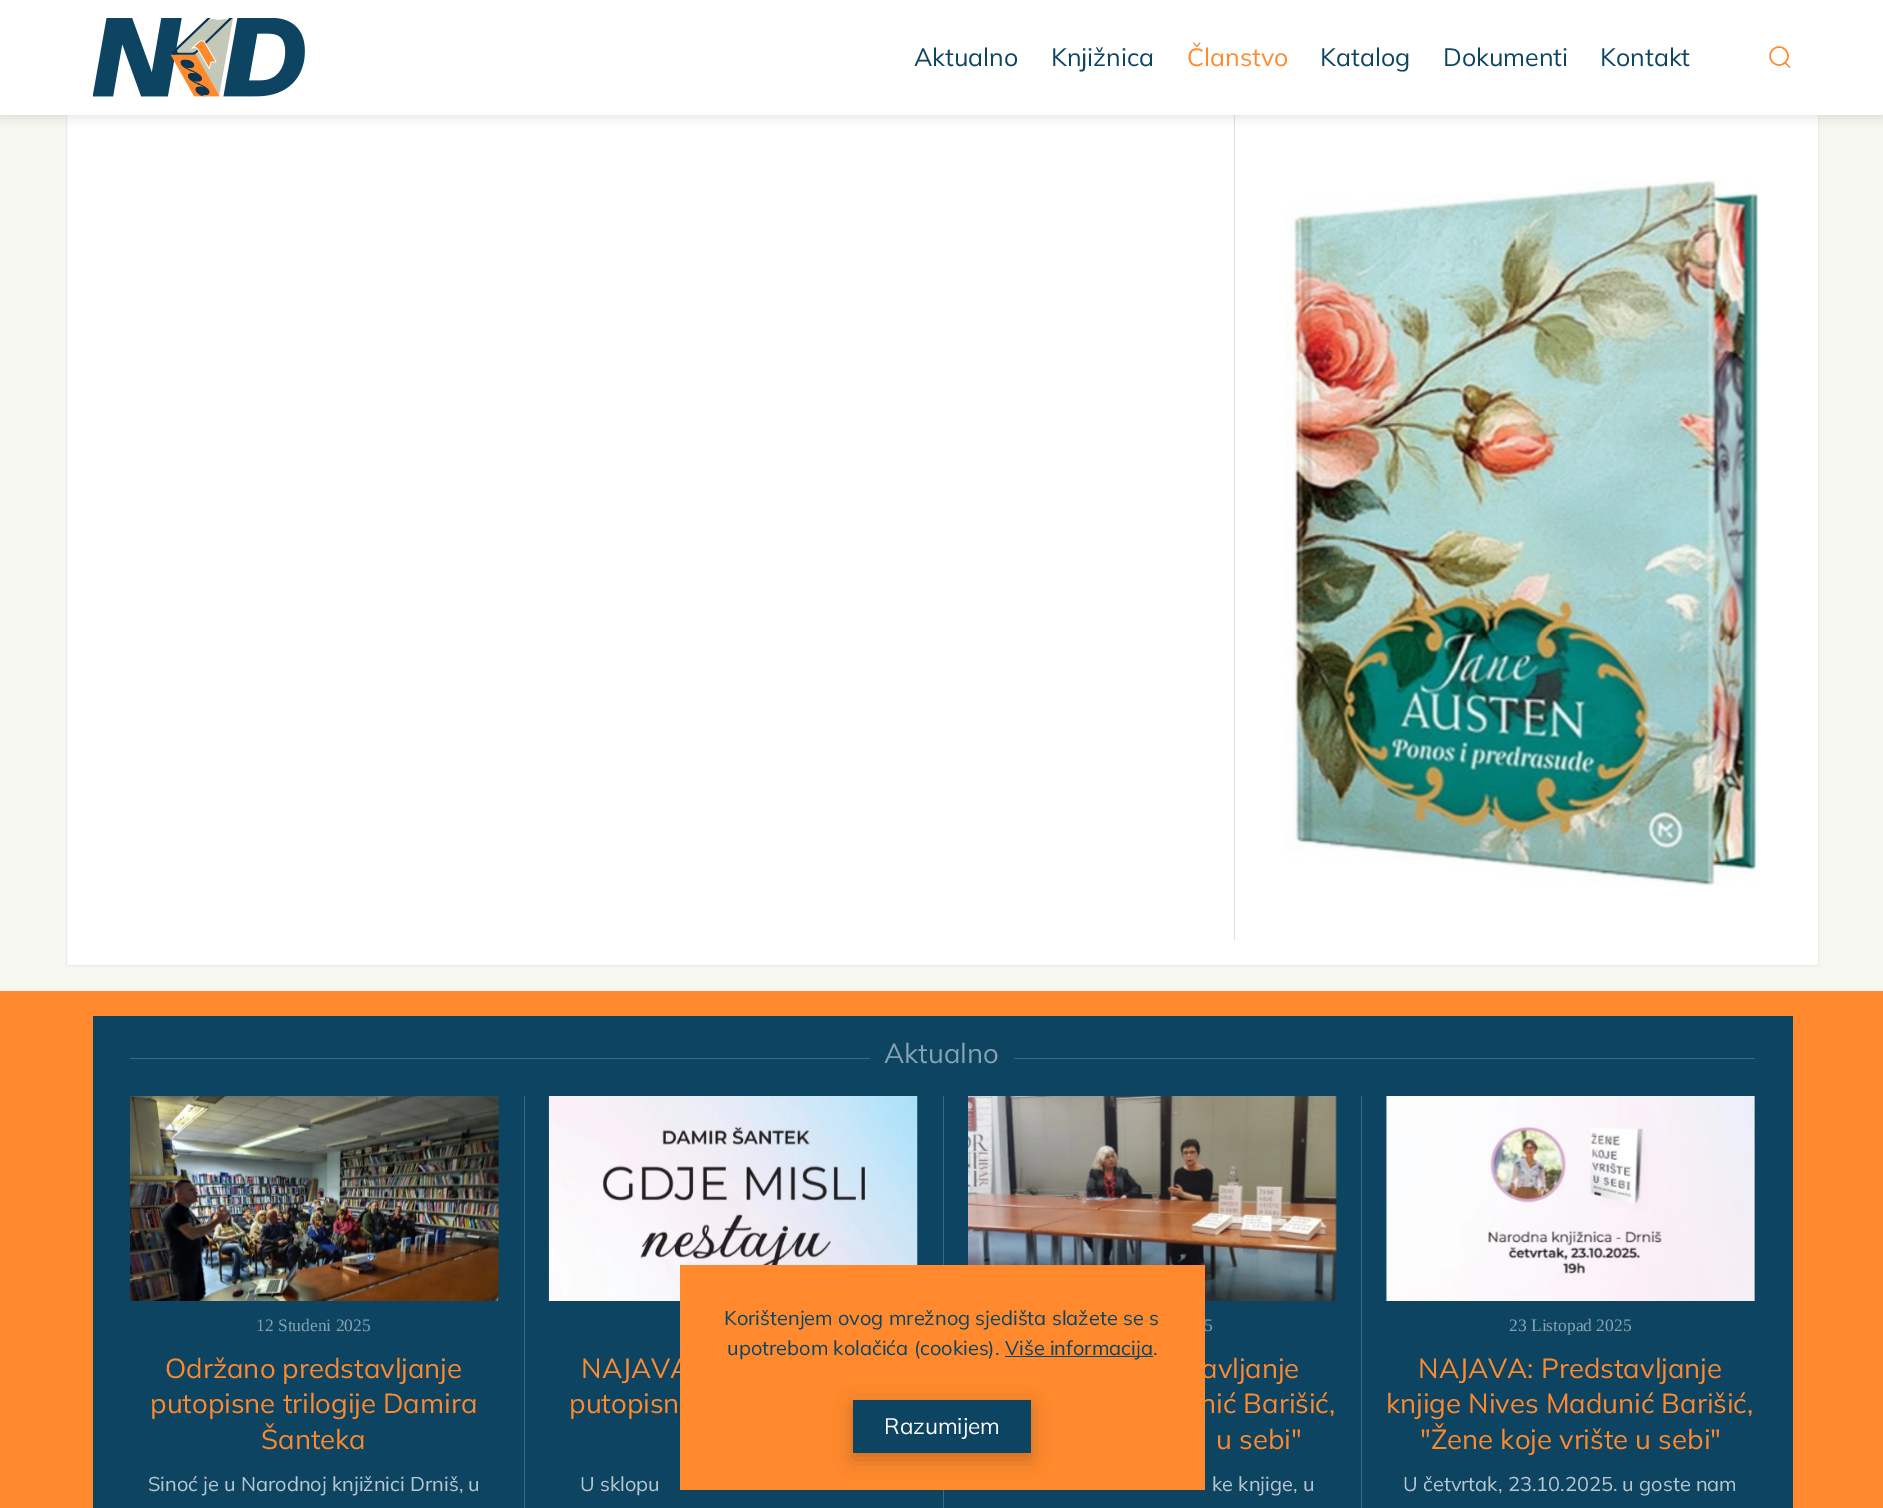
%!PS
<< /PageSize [1883 1508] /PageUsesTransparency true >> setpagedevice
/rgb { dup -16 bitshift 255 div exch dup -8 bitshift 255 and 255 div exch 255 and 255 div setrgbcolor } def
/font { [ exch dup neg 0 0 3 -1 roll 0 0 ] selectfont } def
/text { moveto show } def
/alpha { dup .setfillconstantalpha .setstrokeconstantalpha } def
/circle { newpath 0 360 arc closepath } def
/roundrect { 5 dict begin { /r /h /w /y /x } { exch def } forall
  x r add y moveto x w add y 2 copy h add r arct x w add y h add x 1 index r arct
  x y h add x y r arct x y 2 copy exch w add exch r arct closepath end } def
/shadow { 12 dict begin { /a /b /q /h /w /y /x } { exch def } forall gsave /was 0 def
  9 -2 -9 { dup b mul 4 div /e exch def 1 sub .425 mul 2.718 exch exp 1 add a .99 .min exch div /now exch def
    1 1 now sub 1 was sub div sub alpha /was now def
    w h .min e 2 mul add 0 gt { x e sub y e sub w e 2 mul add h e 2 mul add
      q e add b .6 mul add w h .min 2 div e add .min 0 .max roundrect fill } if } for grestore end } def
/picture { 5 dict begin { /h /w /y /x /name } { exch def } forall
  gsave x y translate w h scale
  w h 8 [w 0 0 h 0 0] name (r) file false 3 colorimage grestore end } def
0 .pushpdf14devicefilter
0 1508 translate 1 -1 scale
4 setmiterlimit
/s1 { /Mulish-ExtraLight 25 font 16#0C4462 rgb } def
/s2 { /Mulish-ExtraLight 25 font 16#FF892C rgb } def
/s3 { /Mulish-ExtraLight 27.5 font 16#86A2B1 rgb } def
/s4 { /LiberationSerif-Regular 17.5 font 16#86A2B1 rgb } def
/s5 { /Mulish-ExtraLight 27.5 font 16#FF892C rgb } def
/s6 { /Mulish-ExtraLight 20 font 16#B6C7D0 rgb } def
/s7 { /Mulish-ExtraLight 20 font 16#0C4462 rgb } def
/s8 { /Mulish-ExtraLight 22.5 font 16#FFFFFF rgb } def
16#F6F7F1 rgb
0 0 1883 1508 rectfill
16#FFFFFF rgb
67 115 1751 850 rectfill
16#EFE9E8 rgb
66.5 -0.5 1752 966 rectstroke
16#E3DDDC rgb
1234 115 1 825 rectfill
(pic1.raw) 1285 178 474 708 picture
16#000000 rgb
0 3 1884 115 0 5 0.1 shadow
16#FFFFFF rgb
0 0 1883 115 rectfill
(pic2.raw) 93 18 212 79 picture
s1
(Aktualno) 914 66 text
(Knjižnica) 1051 66 text
s2
(Članstvo) 1187 66 text
s1
(Katalog) 1320 66 text
(Dokumenti) 1443 66 text
(Kontakt) 1600 66 text
16#FF892C rgb
1.4 setlinewidth
1779 56 9 circle stroke
1785 62.5 moveto 1790 67.5 lineto closepath stroke
0 991 1883 517 rectfill
16#0C4462 rgb
93 1016 1700 492 rectfill
16#3D6981 rgb
130 1058 740 1 rectfill
s3
(Aktualno) 884 1063 text
16#3D6981 rgb
1014 1058 741 1 rectfill
(pic3.raw) 130 1096 369 205 picture
s4
(12 Studeni 2025) 256 1331 text
s5
(Održano predstavljanje) 165 1378 text
(putopisne trilogije Damira) 150 1413 text
(Šanteka) 261 1449 text
s6
(Sinoć je u Narodnoj knjižnici Drniš, u) 148 1491 text
16#3D6981 rgb
524 1096 1 412 rectfill
(pic4.raw) 548 1096 370 205 picture
s5
(NAJAVA) 581 1378 text
(putopisn) 569 1413 text
s6
(U sklopu) 580 1491 text
16#3D6981 rgb
943 1096 1 412 rectfill
(pic5.raw) 968 1096 369 205 picture
s4
(5) 1204 1331 text
s5
(avljanje) 1201 1378 text
(nić Barišić,) 1200 1413 text
(u sebi") 1216 1449 text
s6
(ke knjige, u) 1212 1491 text
16#3D6981 rgb
1361 1096 1 412 rectfill
(pic6.raw) 1385 1096 370 205 picture
s4
(23 Listopad 2025) 1509 1331 text
s5
(NAJAVA: Predstavljanje) 1418 1378 text
(knjige Nives Madunić Barišić,) 1386 1413 text
("Žene koje vrište u sebi") 1420 1449 text
s6
(U četvrtak, 23.10.2025. u goste nam) 1403 1491 text
16#FF892C rgb
680 1265 525 225 rectfill
s7
(Korištenjem ovog mrežnog sjedišta slažete se s) 724 1325 text
(upotrebom kolačića \(cookies\).) 727 1355 text
1005 1356 148 1 rectfill
(Više informacija.) 1005 1355 text
16#000000 rgb
853 1406 178 53 0 9.5 0.2 shadow
16#0C4462 rgb
853 1400 178 53 rectfill
s8
(Razumijem) 884 1434 text
.poppdf14devicefilter showpage
